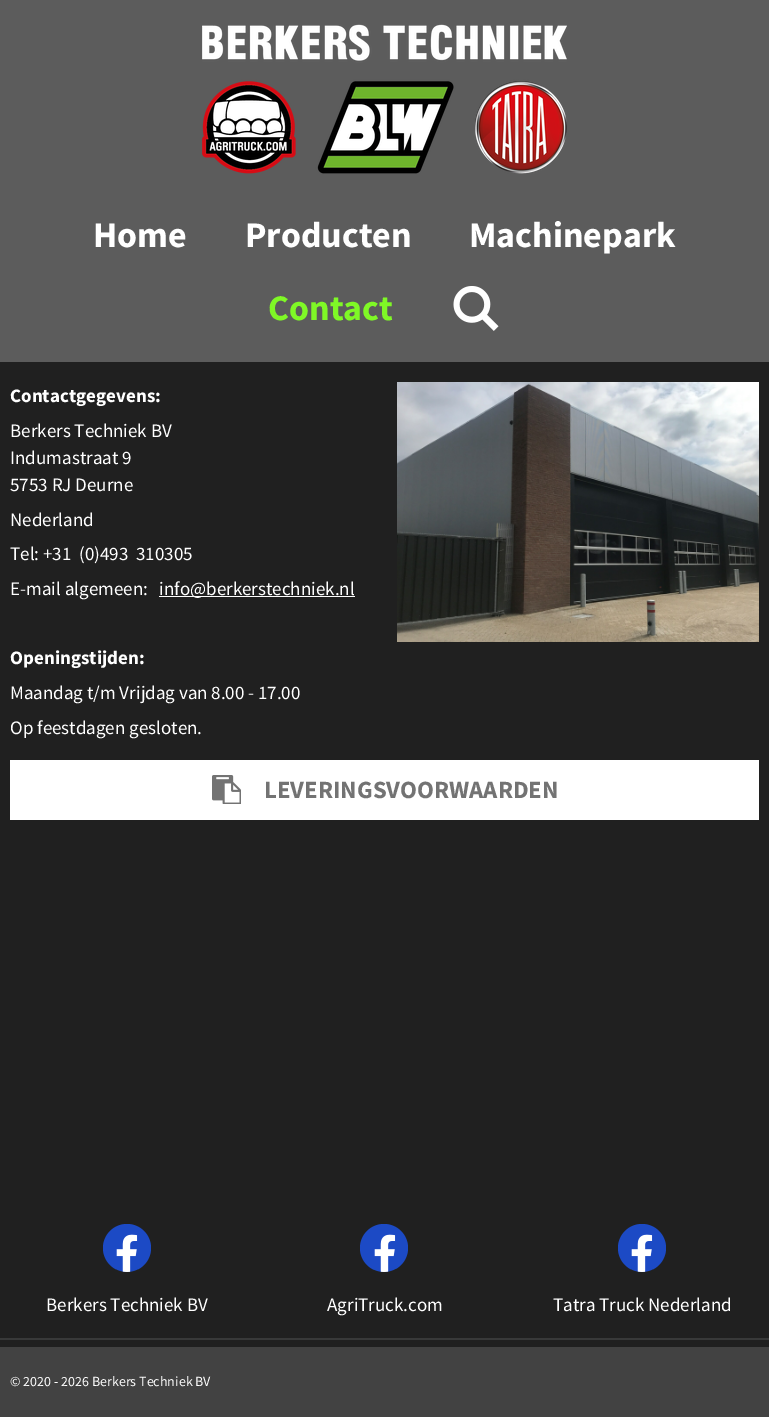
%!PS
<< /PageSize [769 1417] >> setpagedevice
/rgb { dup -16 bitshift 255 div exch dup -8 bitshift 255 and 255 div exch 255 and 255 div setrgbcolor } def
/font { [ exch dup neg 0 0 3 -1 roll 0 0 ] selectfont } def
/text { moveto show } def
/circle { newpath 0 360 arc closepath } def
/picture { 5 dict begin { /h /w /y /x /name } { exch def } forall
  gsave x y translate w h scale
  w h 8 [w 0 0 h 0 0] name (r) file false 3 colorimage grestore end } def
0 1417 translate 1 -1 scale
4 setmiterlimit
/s1 { /SourceSansPro-Bold 36 font 16#FFFFFF rgb } def
/s2 { /SourceSansPro-Bold 36 font 16#7FF826 rgb } def
/s3 { /SourceSansPro-Bold 19 font 16#FFFFFF rgb } def
/s4 { /SourceSansPro-Regular 19 font 16#FFFFFF rgb } def
/s5 { /SourceSansPro-Bold 24.75 font 16#737373 rgb } def
/s6 { /SourceSansPro-Regular 14 font 16#FFFFFF rgb } def
16#202020 rgb
0 0 769 1417 rectfill
16#5C5C5C rgb
0 0 769 362 rectfill
(pic1.raw) 202 24 365 150 picture
s1
(Home) 93 247 text
(Producten) 245 247 text
(Machinepark) 469 247 text
s2
(Contact) 268 320 text
(pic2.raw) 453 286 46 45 picture
16#383939 rgb
0 1338 769 2 rectfill
s3
(Contactgegevens:) 10 402 text
s4
(Berkers Techniek BV) 10 437 text
(Indumastraat 9) 10 464 text
(5753 RJ Deurne) 10 491 text
(Nederland) 10 526 text
(Tel: +31  \(0\)493  310305) 10 560 text
(E-mail algemeen:) 10 595 text
159 596 196 1 rectfill
(info@berkerstechniek.nl) 159 595 text
s3
(Openingstijden:) 10 664 text
s4
(Maandag t/m Vrijdag van 8.00 - 17.00) 10 699 text
(Op feestdagen gesloten.) 10 734 text
(pic3.raw) 397 382 362 260 picture
10 760 749 60 rectfill
(pic4.raw) 212 775 29 29 picture
s5
(LEVERINGSVOORWAARDEN) 264 798 text
16#1C4AC5 rgb
127 1248 24 circle fill
(pic5.raw) 116 1234 22 38 picture
s4
(Berkers Techniek BV) 46 1311 text
16#1C4AC5 rgb
384 1248 24 circle fill
(pic6.raw) 374 1234 22 38 picture
s4
(AgriTruck.com) 327 1311 text
16#1C4AC5 rgb
642 1248 24 circle fill
(pic5.raw) 631 1234 22 38 picture
s4
(Tatra Truck Nederland) 553 1311 text
16#424242 rgb
0 1347 769 70 rectfill
s6
(© 2020 - 2026 Berkers Techniek BV) 10 1386 text
showpage
